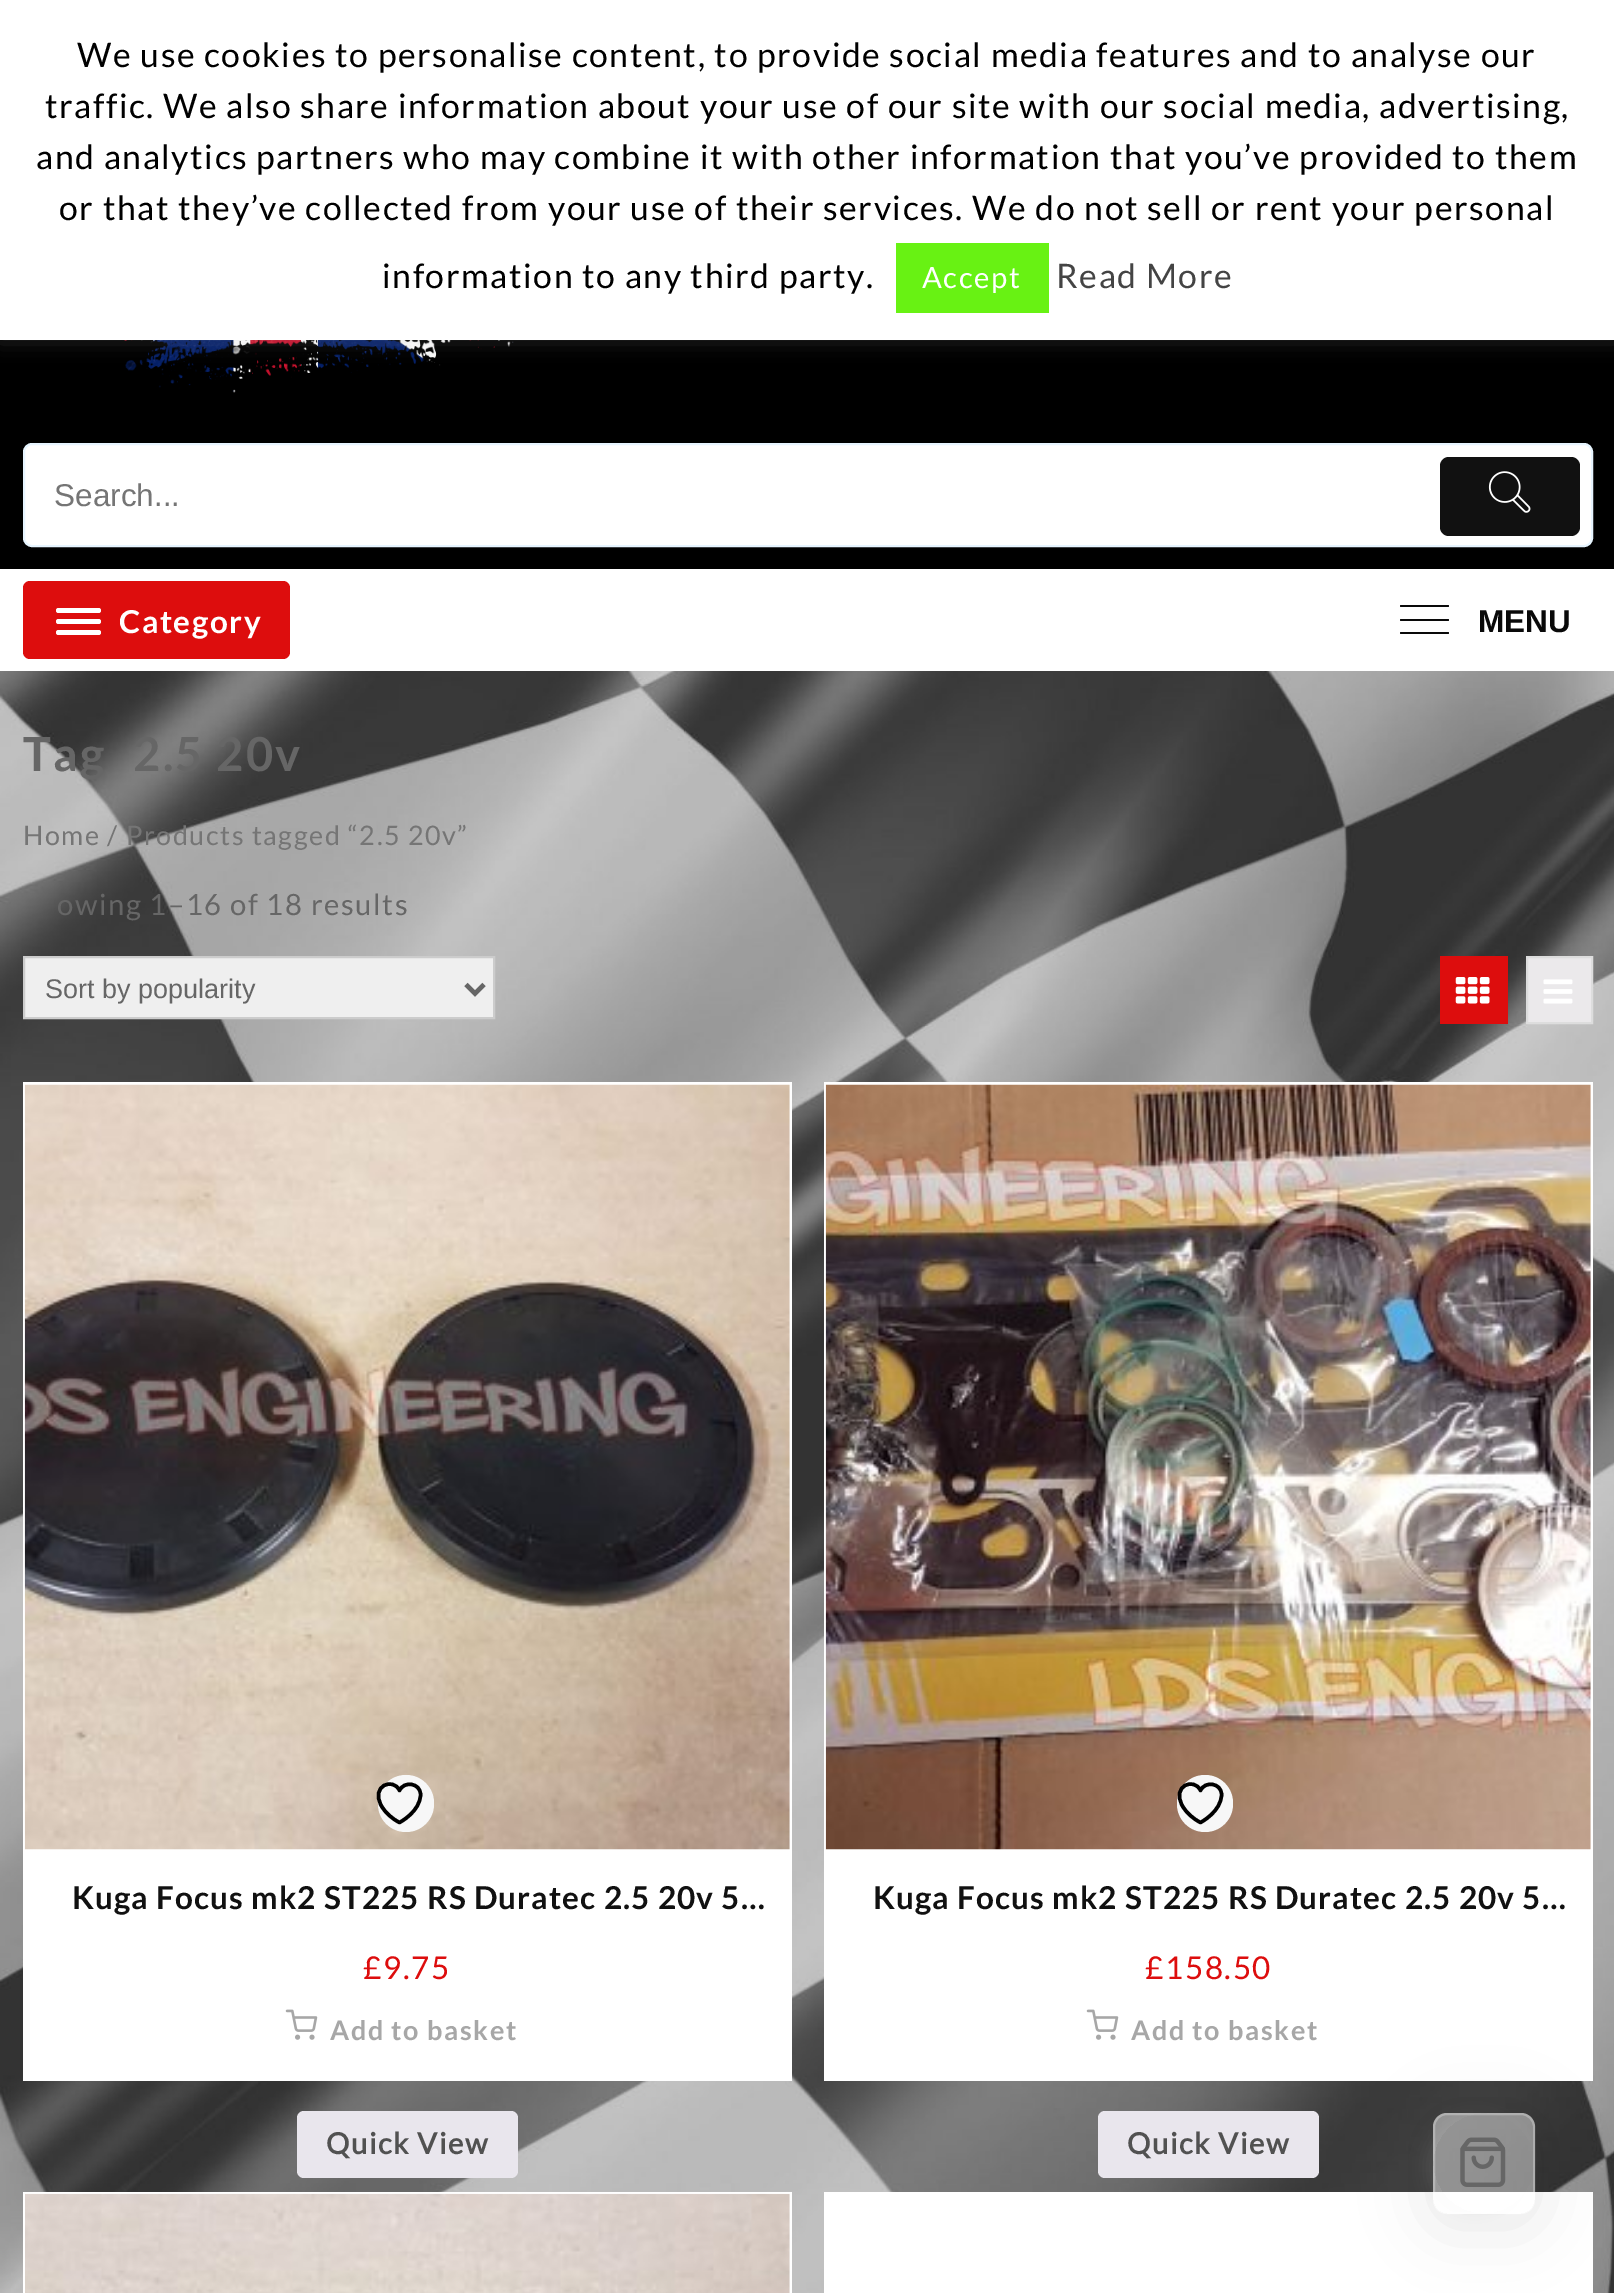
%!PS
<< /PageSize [1614 2293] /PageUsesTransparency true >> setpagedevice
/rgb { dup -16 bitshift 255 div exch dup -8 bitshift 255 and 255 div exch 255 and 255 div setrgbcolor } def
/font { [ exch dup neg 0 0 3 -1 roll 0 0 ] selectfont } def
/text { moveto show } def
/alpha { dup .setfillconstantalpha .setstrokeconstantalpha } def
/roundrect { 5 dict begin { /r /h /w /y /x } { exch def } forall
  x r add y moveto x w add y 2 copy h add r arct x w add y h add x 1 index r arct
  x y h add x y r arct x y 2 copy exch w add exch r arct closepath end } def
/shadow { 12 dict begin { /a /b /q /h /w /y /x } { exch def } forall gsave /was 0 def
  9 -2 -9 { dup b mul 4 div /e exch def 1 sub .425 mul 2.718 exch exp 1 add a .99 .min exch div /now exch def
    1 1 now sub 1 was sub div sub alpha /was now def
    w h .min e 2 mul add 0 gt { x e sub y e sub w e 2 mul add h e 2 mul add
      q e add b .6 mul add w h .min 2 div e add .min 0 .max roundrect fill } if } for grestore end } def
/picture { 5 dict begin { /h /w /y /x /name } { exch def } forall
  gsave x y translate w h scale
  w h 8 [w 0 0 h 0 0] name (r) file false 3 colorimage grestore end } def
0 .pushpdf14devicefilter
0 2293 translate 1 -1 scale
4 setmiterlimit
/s1 { /LiberationSans-Regular 31.5 font 16#757575 rgb } def
/s2 { /LiberationSans-Bold 31.5 font 16#090909 rgb } def
/s3 { /LiberationSans-Regular 27 font 16#666666 rgb } def
16#FFFFFF rgb
0 0 1614 2293 rectfill
(pic1.raw) 0 671 1614 1622 picture
16#000000 rgb
0 340 1614 229 rectfill
(pic2.raw) 124 340 390 53 picture
16#ACABAB rgb
0 -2 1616 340 0 11 0.3 shadow
16#FFFFFF rgb
0 0 1614 340 rectfill
/Lato-Regular 33.75 font
16#000000 rgb
77 67 moveto 1.57 0 (We use cookies to personalise content, to provide social media features and to analyse our) ashow
45 118 moveto 1.57 0 (traffic. We also share information about your use of our site with our social media, advertising,) ashow
36 169 moveto 1.57 0 (and analytics partners who may combine it with other information that you’ve provided to them) ashow
59 220 moveto 1.57 0 (or that they’ve collected from your use of their services. We do not sell or rent your personal) ashow
382 288 moveto 1.57 0 (information to any third party.) ashow
16#68F213 rgb
896 243 153 70 rectfill
/Lato-Regular 29.25 font
16#FFFFFF rgb
922 288 moveto 1.57 0 (Accept) ashow
/Lato-Regular 33.75 font
16#444444 rgb
1056 288 moveto 1.57 0 (Read More) ashow
16#FFFFFF rgb
24 444 1568 102 8 roundrect gsave fill grestore
16#E7F5FF rgb
2 setlinewidth
stroke
s1
(Search...) 54 506 text
16#111111 rgb
1440 457 140 79 9 roundrect fill
(pic3.raw) 1488 471 43 42 picture
16#DD0D0D rgb
23 581 267 78 7 roundrect fill
16#FFFFFF rgb
56 608 45 5 2.5 roundrect fill
56 619 45 5 2.5 roundrect fill
56 630 45 5 2.5 roundrect fill
/Lato-Bold 31.5 font
119 633 moveto 1.57 0 (Category) ashow
16#090909 rgb
1400 605 49 2 1 roundrect fill
1400 619 49 2 1 roundrect fill
1400 632 49 2 1 roundrect fill
s2
(MENU) 1478 632 text
/Lato-Bold 47 font
16#666666 rgb
23 771 moveto 2.25 0 (Tag) ashow
133 771 moveto 2.25 0 (2.5 20v) ashow
/Lato-Regular 26.9 font
16#757575 rgb
23 845 moveto 1.57 0 (Home / Products tagged “2.5 20v”) ashow
/Lato-Regular 29.25 font
16#666666 rgb
57 915 moveto 1.57 0 (owing 1–16 of 18 results) ashow
16#EFEFEF rgb
24 957 moveto 494 957 lineto 494 1018 lineto 24 1018 lineto closepath gsave fill grestore
16#CCCCCC rgb
stroke
16#666666 rgb
4.5 setlinewidth
466 984.5 moveto 475 993.5 lineto 484 984.5 lineto stroke
s3
(Sort by popularity) 45 998 text
16#DD0D0D rgb
1440 956 68 68 rectfill
(pic4.raw) 1455 977 35 27 picture
16#EBE9EB rgb
1527 957 moveto 1592 957 lineto 1592 1023 lineto 1527 1023 lineto closepath gsave fill grestore
16#DDDDDD rgb
2 setlinewidth
stroke
(pic5.raw) 1543 979 30 25 picture
16#FFFFFF rgb
23 1082 769 999 rectfill
(pic6.raw) 24 1084 766 766 picture
16#F7F7F7 rgb
378 1775 56 57 28 roundrect fill
16#000000 rgb
3.5 setlinewidth
1 setlinecap
1 setlinejoin
420.5 1794.5 moveto 420.5 1783 404 1780.5 399.5 1790.5 curveto 393.5 1777 370 1785.5 381.5 1806 curveto 385.5 1813 392.5 1819 399.5 1822.5 curveto 399.5 1822.5 420.5 1811.5 420.5 1794.5 curveto closepath stroke
/Lato-Bold 31.5 font
16#111111 rgb
72 1909 moveto 1.1 0 (Kuga Focus mk2 ST225 RS Duratec 2.5 20v 5…) ashow
/Lato-Regular 31.5 font
16#DD0D0D rgb
363 1979 moveto 1.57 0 (£9.75) ashow
(pic7.raw) 285 2009 33 31 picture
/Lato-Bold 27 font
16#A7A7A7 rgb
330 2040 moveto 1.57 0 (Add to basket) ashow
16#E9E6ED rgb
297 2111 221 67 7 roundrect fill
/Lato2-Bold 29.25 font
16#515151 rgb
326 2154 moveto 1.57 0 (Quick View) ashow
16#FFFFFF rgb
824 1082 769 999 rectfill
(pic8.raw) 825 1084 766 766 picture
16#F7F7F7 rgb
1177 1775 56 57 28 roundrect fill
16#000000 rgb
1221.5 1794.5 moveto 1221.5 1783 1205 1780.5 1200.5 1790.5 curveto 1194.5 1777 1171 1785.5 1182.5 1806 curveto 1186.5 1813 1193.5 1819 1200.5 1822.5 curveto 1200.5 1822.5 1221.5 1811.5 1221.5 1794.5 curveto closepath stroke
/Lato-Bold 31.5 font
16#111111 rgb
873 1909 moveto 1.1 0 (Kuga Focus mk2 ST225 RS Duratec 2.5 20v 5…) ashow
/Lato-Regular 31.5 font
16#DD0D0D rgb
1145 1979 moveto 1.57 0 (£158.50) ashow
(pic7.raw) 1086 2009 33 31 picture
/Lato-Bold 27 font
16#A7A7A7 rgb
1131 2040 moveto 1.57 0 (Add to basket) ashow
16#E9E6ED rgb
1098 2111 221 67 7 roundrect fill
/Lato2-Bold 29.25 font
16#515151 rgb
1127 2154 moveto 1.57 0 (Quick View) ashow
16#FFFFFF rgb
23 2192 769 101 rectfill
(pic9.raw) 25 2193 765 100 picture
824 2192 769 101 rectfill
gsave
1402 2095 moveto 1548 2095 lineto 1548 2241 lineto 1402 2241 lineto closepath 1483.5 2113 moveto 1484.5 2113 lineto 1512.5 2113 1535 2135.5 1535 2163.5 curveto 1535 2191.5 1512.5 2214 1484.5 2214 curveto 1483.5 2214 lineto 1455.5 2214 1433 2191.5 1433 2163.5 curveto 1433 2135.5 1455.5 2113 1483.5 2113 curveto closepath eoclip newpath
16#DDDDDD rgb
1424 2117 102 102 51 7 0.1 shadow
grestore
gsave
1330 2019 moveto 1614 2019 lineto 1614 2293 lineto 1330 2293 lineto closepath 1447 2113 moveto 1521 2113 lineto 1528.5 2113 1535 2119.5 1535 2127 curveto 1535 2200 lineto 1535 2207.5 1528.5 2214 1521 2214 curveto 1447 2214 lineto 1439.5 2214 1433 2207.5 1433 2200 curveto 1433 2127 lineto 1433 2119.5 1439.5 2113 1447 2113 curveto closepath eoclip newpath
16#000000 rgb
1433 2122 102 101 14 34 0.1 shadow
grestore
0.44 alpha
1433 2113 102 101 14 roundrect fill
0.27 alpha
2 setlinewidth
0 setlinecap
0 setlinejoin
1434 2114 100 99 13 roundrect stroke
1 alpha
(pic10.raw) 1460 2137 46 50 picture
.poppdf14devicefilter showpage
